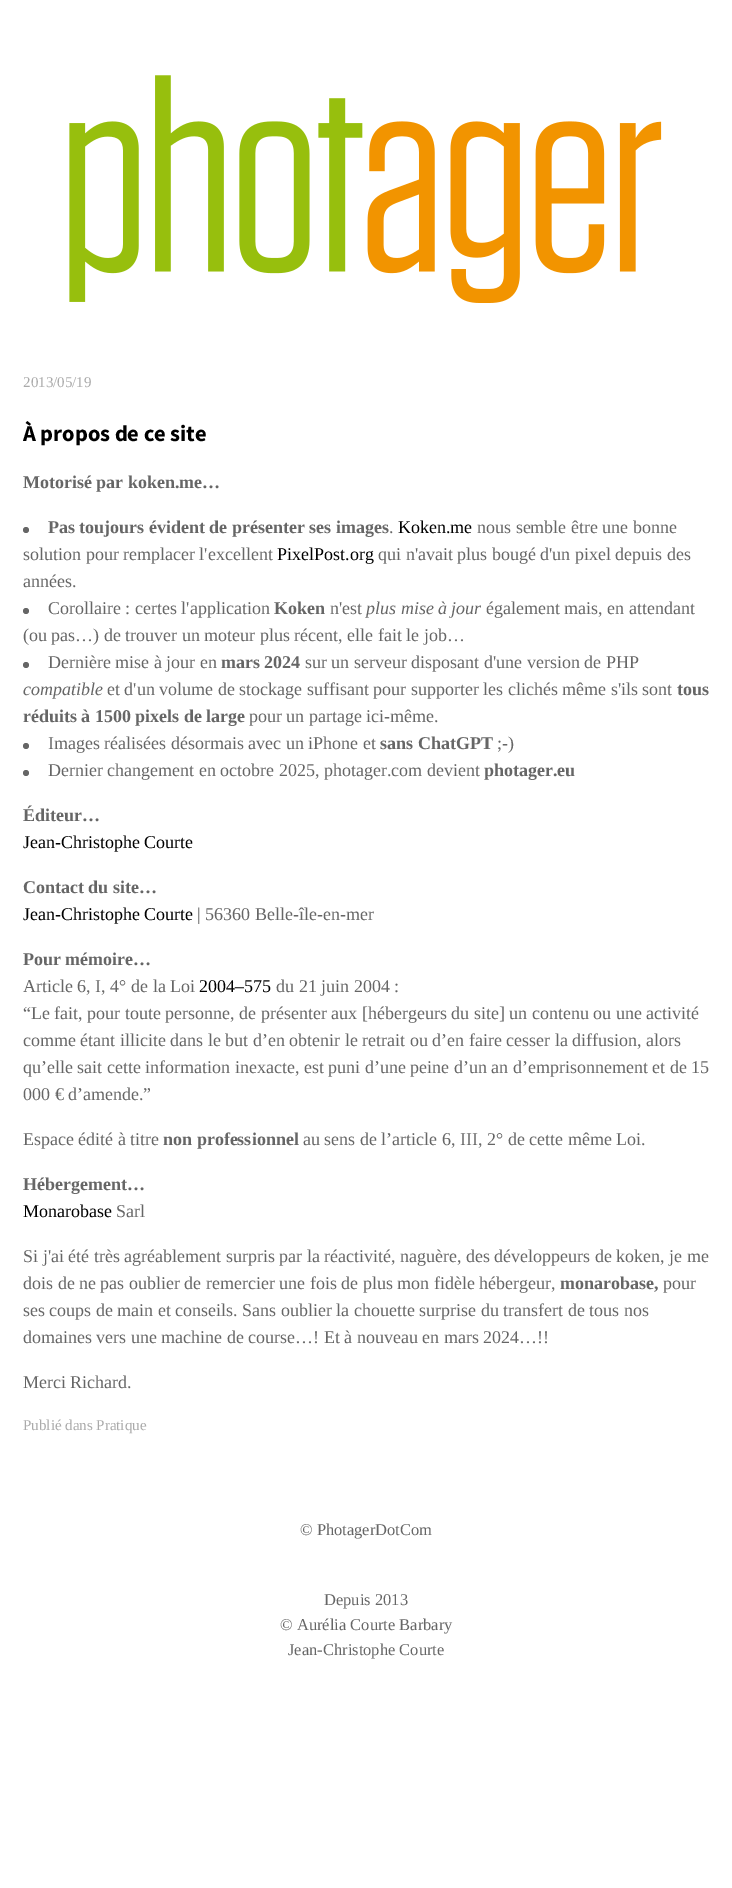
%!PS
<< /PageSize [732 1888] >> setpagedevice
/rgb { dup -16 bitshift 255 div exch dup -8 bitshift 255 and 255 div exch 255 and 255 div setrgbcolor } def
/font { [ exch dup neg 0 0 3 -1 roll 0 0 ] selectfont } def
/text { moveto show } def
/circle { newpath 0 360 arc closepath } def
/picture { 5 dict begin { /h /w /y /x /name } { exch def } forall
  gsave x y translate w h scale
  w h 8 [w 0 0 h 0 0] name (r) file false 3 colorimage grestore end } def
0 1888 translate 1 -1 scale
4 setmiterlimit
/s1 { /LiberationSerif-Regular 15 font 16#AAAAAA rgb } def
/s2 { /SourceSansPro-Bold 22.5 font 16#000000 rgb } def
/s3 { /LiberationSerif-Bold 18 font 16#666666 rgb } def
/s4 { /LiberationSerif-Regular 18 font 16#666666 rgb } def
/s5 { /LiberationSerif-Regular 18 font 16#000000 rgb } def
/s6 { /LiberationSerif-Italic 18 font 16#666666 rgb } def
/s7 { /LiberationSerif-Regular 16.5 font 16#666666 rgb } def
16#FFFFFF rgb
0 0 732 1888 rectfill
(pic1.raw) 69 75 593 228 picture
s1
(2013/05/19) 23 387 text
s2
(À propos de ce site) 23 441 text
s3
(Motorisé par koken.me…) 23 488 text
26 530 3 circle fill
(Pas toujours évident de présenter ses images) 48 533 text
s4
(.) 389 533 text
s5
(Koken.me) 398 533 text
s4
(nous semble être une bonne) 477 533 text
(solution pour remplacer l'excellent) 23 560 text
s5
(PixelPost.org) 277 560 text
s4
(qui n'avait plus bougé d'un pixel depuis des) 378 560 text
(années.) 23 587 text
26 611 3 circle fill
(Corollaire : certes l'application) 48 614 text
s3
(Koken) 274 614 text
s4
(n'est) 330 614 text
s6
(plus mise à jour) 366 614 text
s4
(également mais, en attendant) 486 614 text
(\(ou pas…\) de trouver un moteur plus récent, elle fait le job…) 23 641 text
26 665 3 circle fill
(Dernière mise à jour en) 48 668 text
s3
(mars 2024) 221 668 text
s4
(sur un serveur disposant d'une version de PHP) 305 668 text
s6
(compatible) 23 695 text
s4
(et d'un volume de stockage suffisant pour supporter les clichés même s'ils sont) 107 695 text
s3
(tous) 677 695 text
(réduits à 1500 pixels de large) 23 722 text
s4
(pour un partage ici-même.) 249 722 text
26 746 3 circle fill
(Images réalisées désormais avec un iPhone et) 48 749 text
s3
(sans ChatGPT) 380 749 text
s4
(;-\)) 497 749 text
26 773 3 circle fill
(Dernier changement en octobre 2025, photager.com devient) 48 776 text
s3
(photager.eu) 484 776 text
(Éditeur…) 23 821 text
s5
(Jean-Christophe Courte) 23 848 text
s3
(Contact du site…) 23 893 text
s5
(Jean-Christophe Courte) 23 920 text
s4
(| 56360 Belle-île-en-mer) 197 920 text
s3
(Pour mémoire…) 23 965 text
s4
(Article 6, I, 4° de la Loi) 23 992 text
s5
(2004–575) 199 992 text
s4
(du 21 juin 2004 :) 276 992 text
(“Le fait, pour toute personne, de présenter aux [hébergeurs du site] un contenu ou une activité) 23 1019 text
(comme étant illicite dans le but d’en obtenir le retrait ou d’en faire cesser la diffusion, alors) 23 1046 text
(qu’elle sait cette information inexacte, est puni d’une peine d’un an d’emprisonnement et de 15) 23 1073 text
(000 € d’amende.”) 23 1100 text
(Espace édité à titre) 23 1145 text
s3
(non professionnel) 163 1145 text
s4
(au sens de l’article 6, III, 2° de cette même Loi.) 303 1145 text
s3
(Hébergement…) 23 1190 text
s5
(Monarobase) 23 1217 text
s4
(Sarl) 116 1217 text
(Si j'ai été très agréablement surpris par la réactivité, naguère, des développeurs de koken, je me) 23 1262 text
(dois de ne pas oublier de remercier une fois de plus mon fidèle hébergeur,) 23 1289 text
s3
(monarobase,) 560 1289 text
s4
(pour) 663 1289 text
(ses coups de main et conseils. Sans oublier la chouette surprise du transfert de tous nos) 23 1316 text
(domaines vers une machine de course…! Et à nouveau en mars 2024…!!) 23 1343 text
(Merci Richard.) 23 1388 text
s1
(Publié dans Pratique) 23 1430 text
s7
(© PhotagerDotCom) 300 1535 text
(Depuis 2013) 324 1605 text
(© Aurélia Courte Barbary) 280 1630 text
(Jean-Christophe Courte) 288 1655 text
showpage
